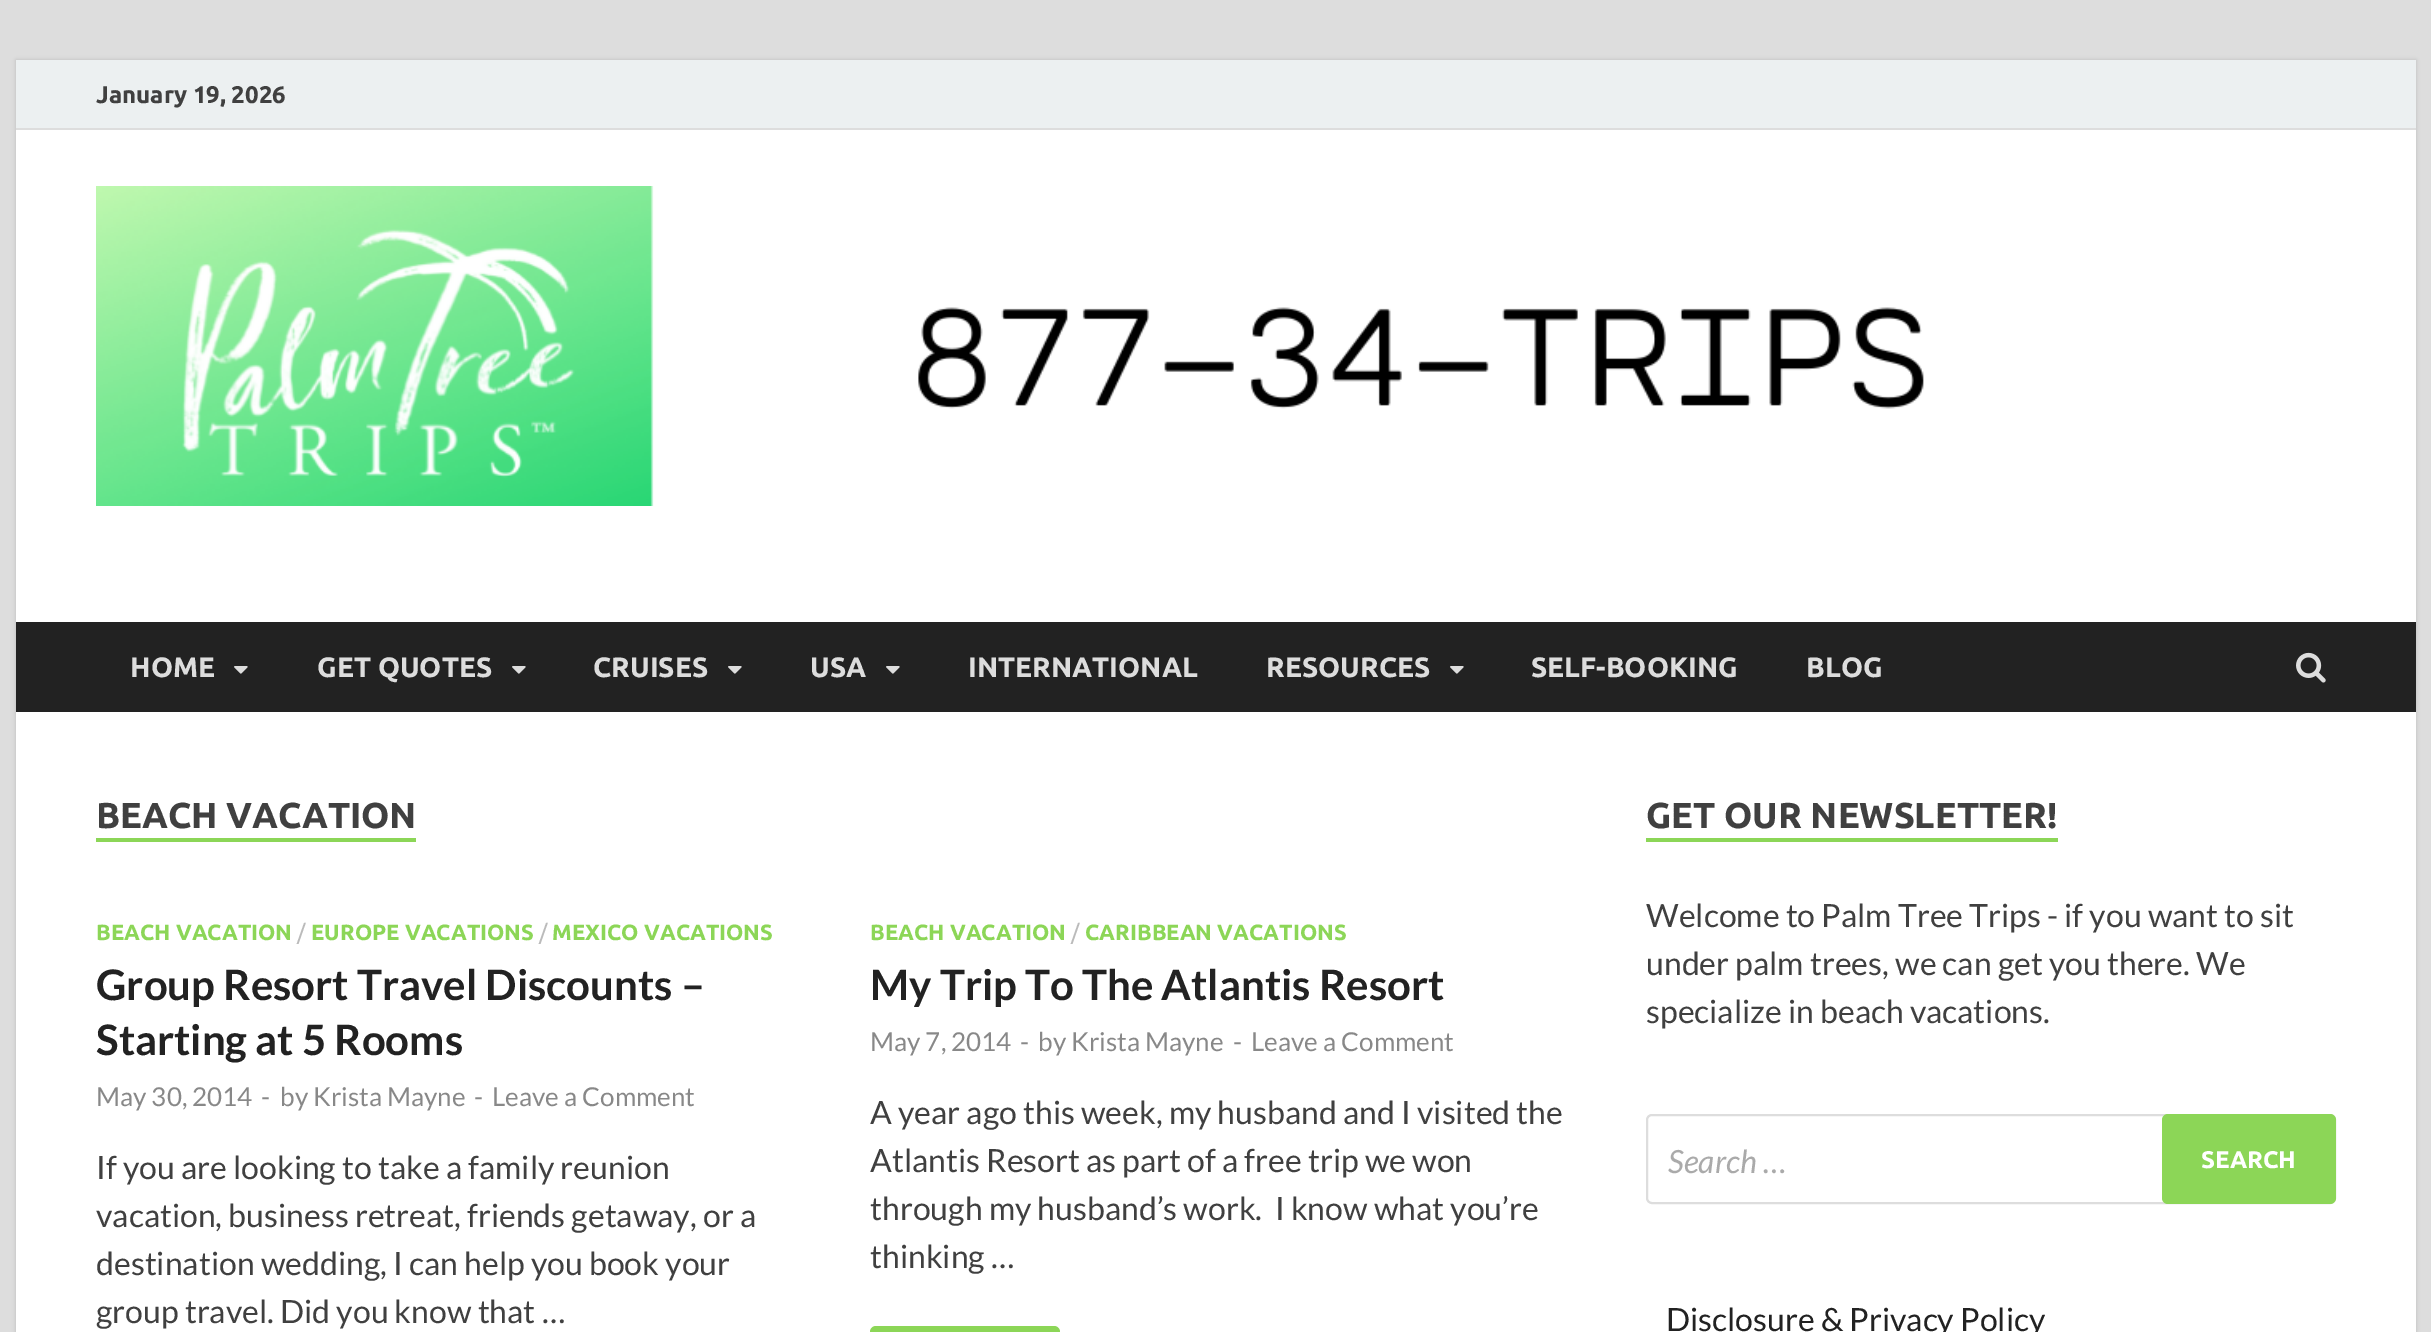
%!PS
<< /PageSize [2431 1332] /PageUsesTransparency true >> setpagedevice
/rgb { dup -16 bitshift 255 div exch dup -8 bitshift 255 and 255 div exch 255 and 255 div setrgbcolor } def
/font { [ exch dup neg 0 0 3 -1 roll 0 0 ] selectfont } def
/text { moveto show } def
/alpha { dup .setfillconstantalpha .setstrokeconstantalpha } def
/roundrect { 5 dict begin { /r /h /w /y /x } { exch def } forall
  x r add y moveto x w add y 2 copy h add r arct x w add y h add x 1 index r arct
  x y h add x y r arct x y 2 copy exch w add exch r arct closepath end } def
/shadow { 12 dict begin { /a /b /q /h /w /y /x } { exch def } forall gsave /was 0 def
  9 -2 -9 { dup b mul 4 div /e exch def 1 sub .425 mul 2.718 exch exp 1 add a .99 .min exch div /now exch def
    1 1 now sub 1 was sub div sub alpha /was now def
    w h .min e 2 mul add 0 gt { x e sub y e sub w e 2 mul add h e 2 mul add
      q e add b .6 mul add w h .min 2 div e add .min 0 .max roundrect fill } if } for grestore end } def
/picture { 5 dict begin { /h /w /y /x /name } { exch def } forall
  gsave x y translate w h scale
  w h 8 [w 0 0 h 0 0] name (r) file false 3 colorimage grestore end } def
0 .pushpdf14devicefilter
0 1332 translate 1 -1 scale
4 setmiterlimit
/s1 { /Ubuntu-Bold 24 font 16#404040 rgb } def
/s2 { /Ubuntu-Bold 28 font 16#DDDDDD rgb } def
/s3 { /Ubuntu-Bold 36 font 16#404040 rgb } def
/s4 { /Ubuntu-Bold 22 font 16#8CD657 rgb } def
/s5 { /Ubuntu-Regular 22 font 16#BBBBBB rgb } def
/s6 { /Lato-Bold 42 font 16#222222 rgb } def
/s7 { /Lato-Regular 26 font 16#888888 rgb } def
/s8 { /Lato-Regular 32 font 16#404040 rgb } def
/s9 { /Lato-Italic 32 font 16#AAAAAA rgb } def
/s10 { /Ubuntu-Bold 24 font 16#FFFFFF rgb } def
/s11 { /Lato-Regular 32 font 16#222222 rgb } def
16#DDDDDD rgb
0 0 2431 1332 rectfill
16#BBBBBB rgb
16 60 2400 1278 0 2 1 shadow
16#FFFFFF rgb
16 130 2400 1202 rectfill
16#ECF0F1 rgb
16 60 2400 68 rectfill
16#DDDDDD rgb
16 128 2400 2 rectfill
s1
(January 19, 2026) 96 103 text
(pic1.raw) 96 186 1828 320 picture
16#222222 rgb
16 622 2400 90 rectfill
s2
(HOME) 130 677 text
(pic2.raw) 234 666 14 8 picture
(GET QUOTES) 317 677 text
(pic2.raw) 512 666 14 8 picture
(CRUISES) 593 677 text
(pic2.raw) 728 666 14 8 picture
(USA) 810 677 text
(pic2.raw) 886 666 14 8 picture
(INTERNATIONAL) 968 677 text
(RESOURCES) 1266 677 text
(pic2.raw) 1450 666 14 8 picture
(SELF-BOOKING) 1531 677 text
(BLOG) 1806 677 text
(pic3.raw) 2296 652 30 31 picture
s3
(BEACH VACATION) 96 828 text
16#8CD657 rgb
96 838 320 4 rectfill
s4
(BEACH VACATION) 96 940 text
s5
(/) 297 940 text
s4
(EUROPE VACATIONS) 311 940 text
s5
(/) 539 940 text
s4
(MEXICO VACATIONS) 552 940 text
s6
(Group Resort Travel Discounts –) 96 1000 text
(Starting at 5 Rooms) 96 1055 text
s7
(May 30, 2014) 96 1106 text
(-) 261 1106 text
(by Krista Mayne) 280 1106 text
(-) 474 1106 text
(Leave a Comment) 492 1106 text
s8
(If you are looking to take a family reunion) 96 1179 text
(vacation, business retreat, friends getaway, or a) 96 1227 text
(destination wedding, I can help you book your) 96 1275 text
(group travel. Did you know that …) 96 1323 text
s4
(BEACH VACATION) 870 940 text
s5
(/) 1071 940 text
s4
(CARIBBEAN VACATIONS) 1085 940 text
s6
(My Trip To The Atlantis Resort) 870 1000 text
s7
(May 7, 2014) 870 1051 text
(-) 1020 1051 text
(by Krista Mayne) 1038 1051 text
(-) 1233 1051 text
(Leave a Comment) 1251 1051 text
s8
(A year ago this week, my husband and I visited the) 870 1124 text
(Atlantis Resort as part of a free trip we won) 870 1172 text
(through my husband’s work.  I know what you’re) 870 1220 text
(thinking …) 870 1268 text
16#8CD657 rgb
870 1326 190 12 6 roundrect fill
1646 838 412 4 rectfill
s3
(GET OUR NEWSLETTER!) 1646 828 text
s8
(Welcome to Palm Tree Trips - if you want to sit) 1646 927 text
(under palm trees, we can get you there. We) 1646 975 text
(specialize in beach vacations.) 1646 1023 text
16#DDDDDD rgb
2 setlinewidth
1647 1115 688 88 5 roundrect stroke
s9
(Search …) 1668 1173 text
16#8CD657 rgb
2162 1114 174 90 6 roundrect fill
s10
(SEARCH) 2201 1168 text
s11
(Disclosure & Privacy Policy) 1666 1331 text
.poppdf14devicefilter showpage
